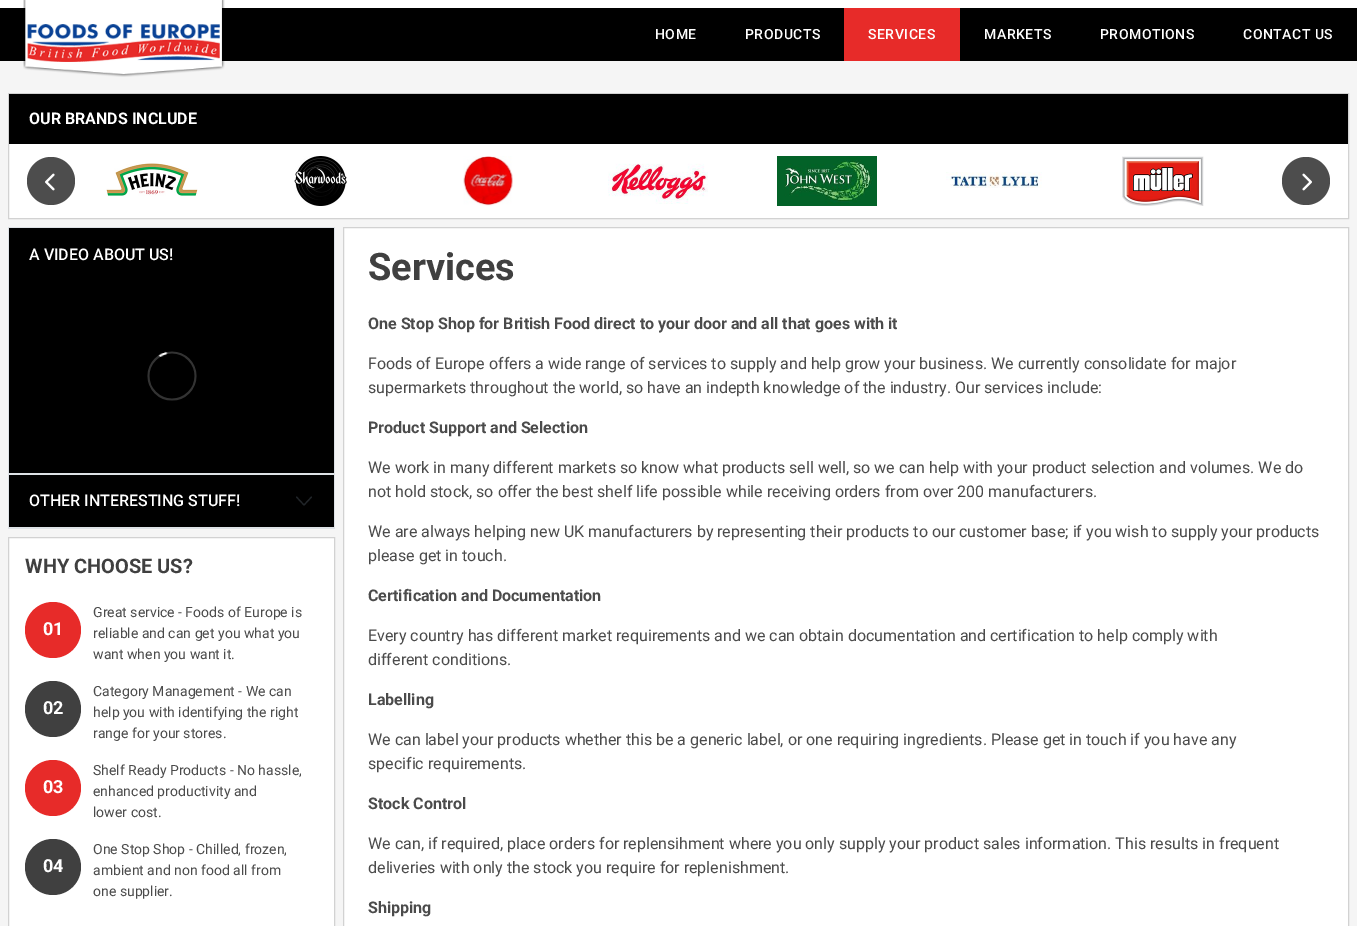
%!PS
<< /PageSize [1357 926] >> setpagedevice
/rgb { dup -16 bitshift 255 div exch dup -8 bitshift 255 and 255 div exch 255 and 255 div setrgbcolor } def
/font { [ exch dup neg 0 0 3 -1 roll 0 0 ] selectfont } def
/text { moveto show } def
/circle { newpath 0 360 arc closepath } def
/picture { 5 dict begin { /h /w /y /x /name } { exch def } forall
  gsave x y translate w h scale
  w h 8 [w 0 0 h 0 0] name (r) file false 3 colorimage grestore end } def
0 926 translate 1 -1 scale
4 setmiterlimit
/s1 { /Roboto-Bold 16 font 16#FFFFFF rgb } def
/s2 { /Roboto-Medium 16 font 16#FFFFFF rgb } def
/s3 { /Roboto-Bold 20 font 16#404040 rgb } def
/s4 { /Roboto-Regular 14 font 16#4B4B4B rgb } def
/s5 { /Roboto-Bold 18 font 16#FFFFFF rgb } def
/s6 { /Roboto-Bold 38 font 16#404040 rgb } def
/s7 { /Roboto-Bold 16 font 16#4B4B4B rgb } def
/s8 { /Roboto-Regular 16 font 16#4B4B4B rgb } def
16#FFFFFF rgb
0 0 1357 926 rectfill
16#F5F5F5 rgb
0 61 1357 865 rectfill
16#000000 rgb
0 8 1357 53 rectfill
(pic1.raw) 23 0 202 77 picture
/Roboto-Medium 14 font
16#FFFFFF rgb
655 39 moveto 0.5 0 (HOME) ashow
745 39 moveto 0.5 0 (PRODUCTS) ashow
16#E72B29 rgb
844 8 116 53 rectfill
16#FFFFFF rgb
868 39 moveto 0.5 0 (SERVICES) ashow
984 39 moveto 0.5 0 (MARKETS) ashow
1100 39 moveto 0.5 0 (PROMOTIONS) ashow
1243 39 moveto 0.5 0 (CONTACT US) ashow
9 144 1339 74 rectfill
16#D2D2D2 rgb
8.5 93.5 1340 125 rectstroke
16#000000 rgb
9 94 1339 50 rectfill
s1
(OUR BRANDS INCLUDE) 29 124 text
(pic2.raw) 106 163 92 33 picture
(pic3.raw) 294 156 53 50 picture
(pic4.raw) 463 156 50 50 picture
(pic5.raw) 608 163 100 41 picture
(pic6.raw) 777 156 100 50 picture
(pic7.raw) 946 172 96 16 picture
(pic8.raw) 1122 156 82 50 picture
16#4D4D4D rgb
51 181 24 circle fill
(pic9.raw) 45 173 10 18 picture
1306 181 24 circle fill
(pic10.raw) 1302 173 10 18 picture
16#000000 rgb
9 228 325 245 rectfill
16#DEE2E6 rgb
8 227 327 1 rectfill
334 227 1 302 rectfill
8 473 327 2 rectfill
8 227 1 248 rectfill
s2
(A VIDEO ABOUT US!) 29 260 text
(pic11.raw) 147 351 50 50 picture
16#000000 rgb
9 475 325 52 rectfill
16#DEE2E6 rgb
8 527 327 2 rectfill
8 475 1 54 rectfill
s2
(OTHER INTERESTING STUFF!) 29 506 text
16#212529 rgb
1.2 setlinewidth
1 setlinecap
1 setlinejoin
296.5 497 moveto 304 505 lineto 311.5 497 lineto stroke
16#FFFFFF rgb
8.5 537.5 moveto 334.5 537.5 lineto 334.5 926.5 lineto 8.5 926.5 lineto closepath gsave fill grestore
16#D2D2D2 rgb
1 setlinewidth
0 setlinecap
0 setlinejoin
stroke
s3
(WHY CHOOSE US?) 25 573 text
s4
(Great service - Foods of Europe is) 93 617 text
16#E72B29 rgb
53 630 28 circle fill
s5
(01) 43 635 text
s4
(reliable and can get you what you) 93 638 text
(want when you want it.) 93 659 text
(Category Management - We can) 93 696 text
16#404040 rgb
53 709 28 circle fill
s5
(02) 43 714 text
s4
(help you with identifying the right) 93 717 text
(range for your stores.) 93 738 text
(Shelf Ready Products - No hassle,) 93 775 text
16#E72B29 rgb
53 788 28 circle fill
s5
(03) 43 793 text
s4
(enhanced productivity and) 93 796 text
(lower cost.) 93 817 text
(One Stop Shop - Chilled, frozen,) 93 854 text
16#404040 rgb
53 867 28 circle fill
s5
(04) 43 872 text
s4
(ambient and non food all from) 93 875 text
(one supplier.) 93 896 text
16#FFFFFF rgb
343.5 227.5 moveto 1348.5 227.5 lineto 1348.5 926.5 lineto 343.5 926.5 lineto closepath gsave fill grestore
16#D2D2D2 rgb
stroke
s6
(Services) 368 280 text
s7
(One Stop Shop for British Food direct to your door and all that goes with it) 368 329 text
s8
(Foods of Europe offers a wide range of services to supply and help grow your business. We currently consolidate for major) 368 369 text
(supermarkets throughout the world, so have an indepth knowledge of the industry. Our services include:) 368 393 text
s7
(Product Support and Selection) 368 433 text
s8
(We work in many different markets so know what products sell well, so we can help with your product selection and volumes. We do) 368 473 text
(not hold stock, so offer the best shelf life possible while receiving orders from over 200 manufacturers.) 368 497 text
(We are always helping new UK manufacturers by representing their products to our customer base; if you wish to supply your products) 368 537 text
(please get in touch.) 368 561 text
s7
(Certification and Documentation) 368 601 text
s8
(Every country has different market requirements and we can obtain documentation and certification to help comply with) 368 641 text
(different conditions.) 368 665 text
s7
(Labelling) 368 705 text
s8
(We can label your products whether this be a generic label, or one requiring ingredients. Please get in touch if you have any) 368 745 text
(specific requirements.) 368 769 text
s7
(Stock Control) 368 809 text
s8
(We can, if required, place orders for replensihment where you only supply your product sales information. This results in frequent) 368 849 text
(deliveries with only the stock you require for replenishment.) 368 873 text
s7
(Shipping) 368 913 text
showpage
